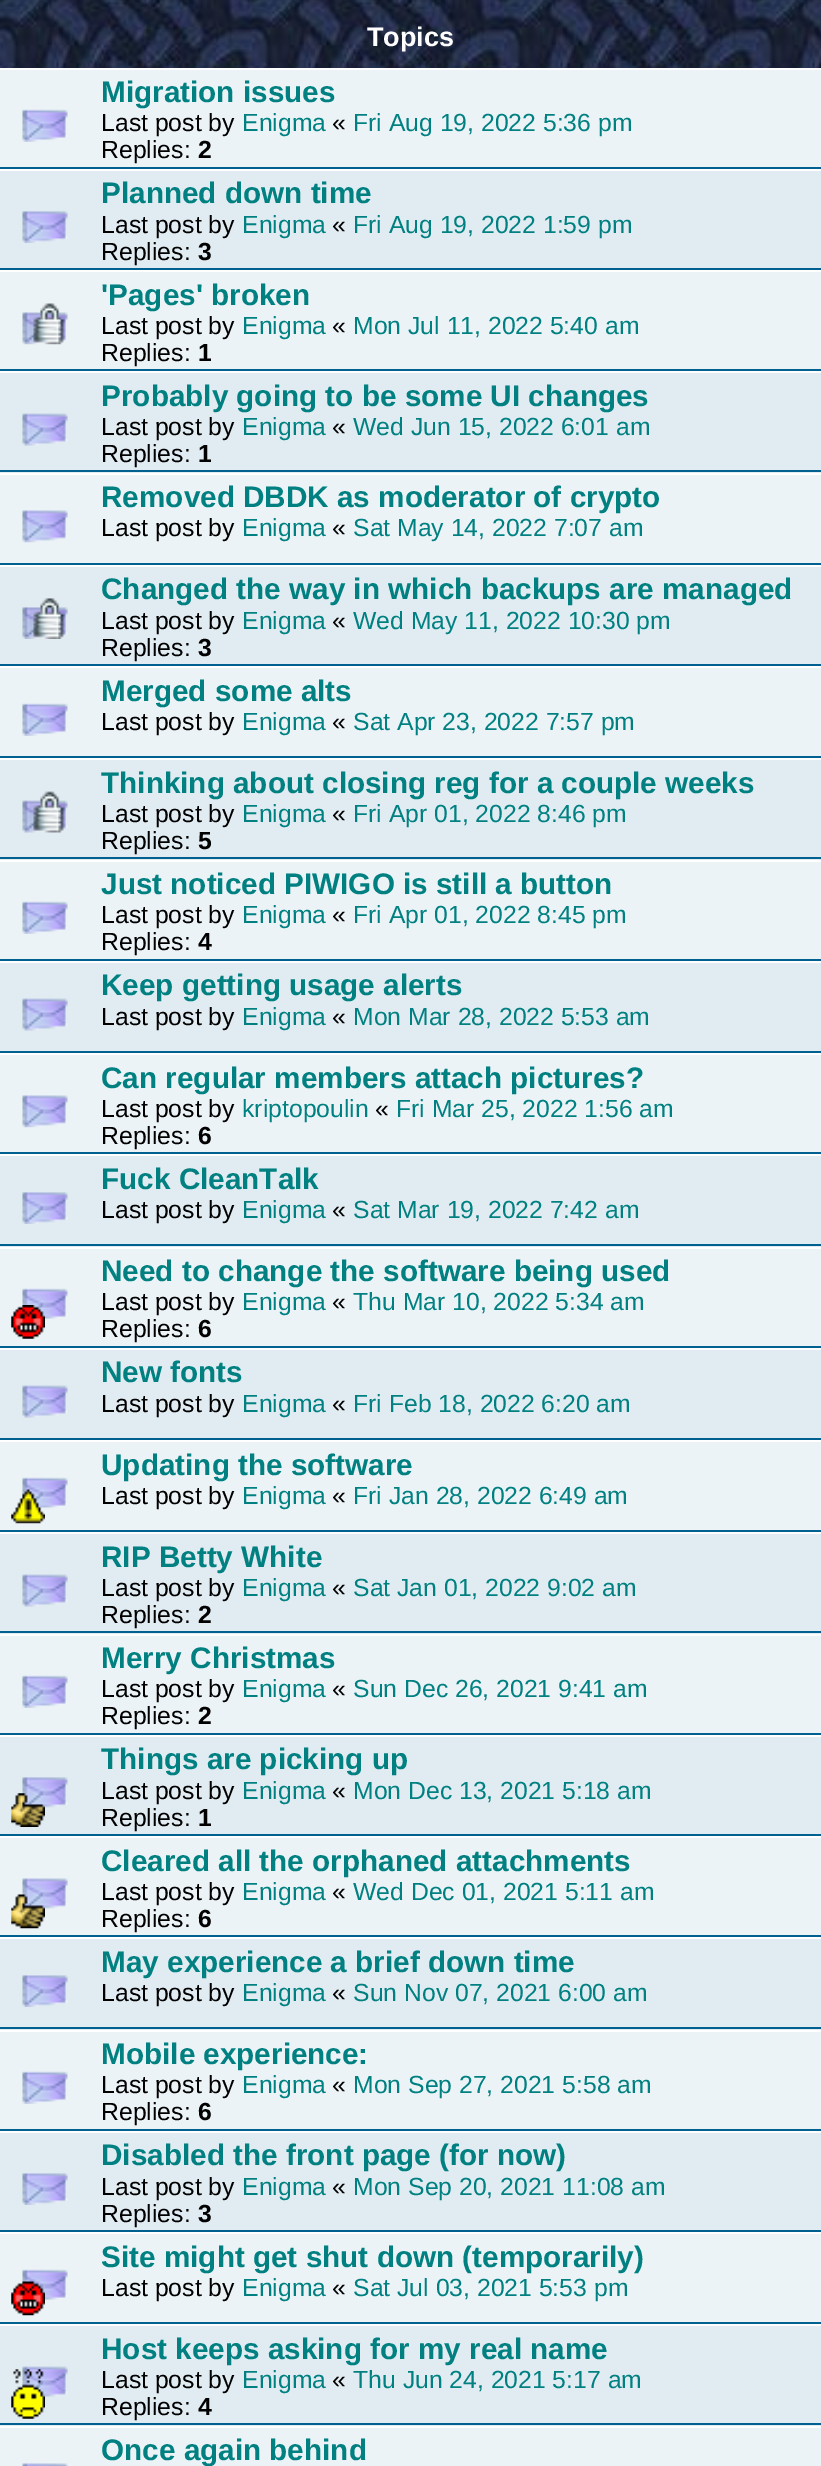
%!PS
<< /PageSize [821 2466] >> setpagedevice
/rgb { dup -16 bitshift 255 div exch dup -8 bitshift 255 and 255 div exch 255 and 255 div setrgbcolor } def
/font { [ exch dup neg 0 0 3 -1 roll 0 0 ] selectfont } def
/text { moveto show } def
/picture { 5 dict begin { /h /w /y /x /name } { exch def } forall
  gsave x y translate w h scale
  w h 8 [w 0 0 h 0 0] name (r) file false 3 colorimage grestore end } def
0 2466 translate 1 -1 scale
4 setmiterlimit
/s1 { /LiberationSans-Bold 27 font 16#FFFFFF rgb } def
/s2 { /LiberationSans-Bold 29.7 font 16#008080 rgb } def
/s3 { /LiberationSans-Regular 24.75 font 16#000000 rgb } def
/s4 { /LiberationSans-Regular 24.75 font 16#008080 rgb } def
/s5 { /LiberationSans-Bold 24.75 font 16#000000 rgb } def
16#FFFFFF rgb
0 0 821 2466 rectfill
(pic1.raw) 0 0 821 68 picture
s1
(Topics) 367 46 text
16#ECF3F7 rgb
0 70 821 97 rectfill
16#00608F rgb
0 167 821 2 rectfill
(pic2.raw) 22 109 46 33 picture
s2
(Migration issues) 101 102 text
s3
(Last post by) 101 131 text
s4
(Enigma) 242 131 text
s3
(«) 332 131 text
s4
(Fri Aug 19, 2022 5:36 pm) 353 131 text
s3
(Replies:) 101 158 text
s5
(2) 198 158 text
16#E1EBF2 rgb
0 171 821 97 rectfill
16#00608F rgb
0 268 821 2 rectfill
(pic3.raw) 22 211 46 32 picture
s2
(Planned down time) 101 203 text
s3
(Last post by) 101 233 text
s4
(Enigma) 242 233 text
s3
(«) 332 233 text
s4
(Fri Aug 19, 2022 1:59 pm) 353 233 text
s3
(Replies:) 101 260 text
s5
(3) 198 260 text
16#ECF3F7 rgb
0 272 821 97 rectfill
16#00608F rgb
0 369 821 2 rectfill
(pic4.raw) 22 303 46 42 picture
s2
('Pages' broken) 101 305 text
s3
(Last post by) 101 334 text
s4
(Enigma) 242 334 text
s3
(«) 332 334 text
s4
(Mon Jul 11, 2022 5:40 am) 353 334 text
s3
(Replies:) 101 361 text
s5
(1) 198 361 text
16#E1EBF2 rgb
0 373 821 100 rectfill
16#00608F rgb
0 470 821 2 rectfill
(pic5.raw) 22 413 46 33 picture
s2
(Probably going to be some UI changes) 101 406 text
s3
(Last post by) 101 435 text
s4
(Enigma) 242 435 text
s3
(«) 332 435 text
s4
(Wed Jun 15, 2022 6:01 am) 353 435 text
s3
(Replies:) 101 462 text
s5
(1) 198 462 text
16#ECF3F7 rgb
0 475 821 88 rectfill
16#00608F rgb
0 563 821 2 rectfill
(pic6.raw) 22 510 46 33 picture
s2
(Removed DBDK as moderator of crypto) 101 507 text
s3
(Last post by) 101 536 text
s4
(Enigma) 242 536 text
s3
(«) 332 536 text
s4
(Sat May 14, 2022 7:07 am) 353 536 text
16#E1EBF2 rgb
0 567 821 97 rectfill
16#00608F rgb
0 664 821 2 rectfill
(pic7.raw) 22 598 46 41 picture
s2
(Changed the way in which backups are managed) 101 599 text
s3
(Last post by) 101 629 text
s4
(Enigma) 242 629 text
s3
(«) 332 629 text
s4
(Wed May 11, 2022 10:30 pm) 353 629 text
s3
(Replies:) 101 656 text
s5
(3) 198 656 text
16#ECF3F7 rgb
0 668 821 88 rectfill
16#00608F rgb
0 756 821 2 rectfill
(pic2.raw) 22 703 46 33 picture
s2
(Merged some alts) 101 701 text
s3
(Last post by) 101 730 text
s4
(Enigma) 242 730 text
s3
(«) 332 730 text
s4
(Sat Apr 23, 2022 7:57 pm) 353 730 text
16#E1EBF2 rgb
0 760 821 100 rectfill
16#00608F rgb
0 857 821 2 rectfill
(pic8.raw) 22 791 46 42 picture
s2
(Thinking about closing reg for a couple weeks) 101 793 text
s3
(Last post by) 101 822 text
s4
(Enigma) 242 822 text
s3
(«) 332 822 text
s4
(Fri Apr 01, 2022 8:46 pm) 353 822 text
s3
(Replies:) 101 849 text
s5
(5) 198 849 text
16#ECF3F7 rgb
0 862 821 97 rectfill
16#00608F rgb
0 959 821 2 rectfill
(pic2.raw) 22 901 46 33 picture
s2
(Just noticed PIWIGO is still a button) 101 894 text
s3
(Last post by) 101 923 text
s4
(Enigma) 242 923 text
s3
(«) 332 923 text
s4
(Fri Apr 01, 2022 8:45 pm) 353 923 text
s3
(Replies:) 101 950 text
s5
(4) 198 950 text
16#E1EBF2 rgb
0 963 821 88 rectfill
16#00608F rgb
0 1051 821 2 rectfill
(pic5.raw) 22 998 46 33 picture
s2
(Keep getting usage alerts) 101 995 text
s3
(Last post by) 101 1025 text
s4
(Enigma) 242 1025 text
s3
(«) 332 1025 text
s4
(Mon Mar 28, 2022 5:53 am) 353 1025 text
16#ECF3F7 rgb
0 1055 821 97 rectfill
16#00608F rgb
0 1152 821 2 rectfill
(pic9.raw) 22 1095 46 33 picture
s2
(Can regular members attach pictures?) 101 1088 text
s3
(Last post by) 101 1117 text
s4
(kriptopoulin) 242 1117 text
s3
(«) 375 1117 text
s4
(Fri Mar 25, 2022 1:56 am) 396 1117 text
s3
(Replies:) 101 1144 text
s5
(6) 198 1144 text
16#E1EBF2 rgb
0 1156 821 91 rectfill
16#00608F rgb
0 1244 821 2 rectfill
(pic3.raw) 22 1192 46 32 picture
s2
(Fuck CleanTalk) 101 1189 text
s3
(Last post by) 101 1218 text
s4
(Enigma) 242 1218 text
s3
(«) 332 1218 text
s4
(Sat Mar 19, 2022 7:42 am) 353 1218 text
16#ECF3F7 rgb
0 1249 821 97 rectfill
16#00608F rgb
0 1346 821 2 rectfill
(pic10.raw) 22 1288 46 32 picture
(pic11.raw) 11 1305 34 34 picture
s2
(Need to change the software being used) 101 1281 text
s3
(Last post by) 101 1310 text
s4
(Enigma) 242 1310 text
s3
(«) 332 1310 text
s4
(Thu Mar 10, 2022 5:34 am) 353 1310 text
s3
(Replies:) 101 1337 text
s5
(6) 198 1337 text
16#E1EBF2 rgb
0 1350 821 88 rectfill
16#00608F rgb
0 1438 821 2 rectfill
(pic5.raw) 22 1385 46 33 picture
s2
(New fonts) 101 1382 text
s3
(Last post by) 101 1412 text
s4
(Enigma) 242 1412 text
s3
(«) 332 1412 text
s4
(Fri Feb 18, 2022 6:20 am) 353 1412 text
16#ECF3F7 rgb
0 1442 821 88 rectfill
16#00608F rgb
0 1530 821 2 rectfill
(pic10.raw) 22 1477 46 32 picture
(pic12.raw) 11 1489 34 35 picture
s2
(Updating the software) 101 1475 text
s3
(Last post by) 101 1504 text
s4
(Enigma) 242 1504 text
s3
(«) 332 1504 text
s4
(Fri Jan 28, 2022 6:49 am) 353 1504 text
16#E1EBF2 rgb
0 1534 821 100 rectfill
16#00608F rgb
0 1631 821 2 rectfill
(pic5.raw) 22 1574 46 33 picture
s2
(RIP Betty White) 101 1567 text
s3
(Last post by) 101 1596 text
s4
(Enigma) 242 1596 text
s3
(«) 332 1596 text
s4
(Sat Jan 01, 2022 9:02 am) 353 1596 text
s3
(Replies:) 101 1623 text
s5
(2) 198 1623 text
16#ECF3F7 rgb
0 1636 821 97 rectfill
16#00608F rgb
0 1733 821 2 rectfill
(pic2.raw) 22 1675 46 33 picture
s2
(Merry Christmas) 101 1668 text
s3
(Last post by) 101 1697 text
s4
(Enigma) 242 1697 text
s3
(«) 332 1697 text
s4
(Sun Dec 26, 2021 9:41 am) 353 1697 text
s3
(Replies:) 101 1724 text
s5
(2) 198 1724 text
16#E1EBF2 rgb
0 1737 821 97 rectfill
16#00608F rgb
0 1834 821 2 rectfill
(pic13.raw) 22 1777 46 31 picture
(pic14.raw) 11 1793 34 34 picture
s2
(Things are picking up) 101 1769 text
s3
(Last post by) 101 1799 text
s4
(Enigma) 242 1799 text
s3
(«) 332 1799 text
s4
(Mon Dec 13, 2021 5:18 am) 353 1799 text
s3
(Replies:) 101 1826 text
s5
(1) 198 1826 text
16#ECF3F7 rgb
0 1838 821 97 rectfill
16#00608F rgb
0 1935 821 2 rectfill
(pic15.raw) 22 1878 46 31 picture
(pic16.raw) 11 1894 34 35 picture
s2
(Cleared all the orphaned attachments) 101 1871 text
s3
(Last post by) 101 1900 text
s4
(Enigma) 242 1900 text
s3
(«) 332 1900 text
s4
(Wed Dec 01, 2021 5:11 am) 353 1900 text
s3
(Replies:) 101 1927 text
s5
(6) 198 1927 text
16#E1EBF2 rgb
0 1939 821 91 rectfill
16#00608F rgb
0 2027 821 2 rectfill
(pic3.raw) 22 1975 46 32 picture
s2
(May experience a brief down time) 101 1972 text
s3
(Last post by) 101 2001 text
s4
(Enigma) 242 2001 text
s3
(«) 332 2001 text
s4
(Sun Nov 07, 2021 6:00 am) 353 2001 text
16#ECF3F7 rgb
0 2032 821 97 rectfill
16#00608F rgb
0 2129 821 2 rectfill
(pic2.raw) 22 2071 46 33 picture
s2
(Mobile experience:) 101 2064 text
s3
(Last post by) 101 2093 text
s4
(Enigma) 242 2093 text
s3
(«) 332 2093 text
s4
(Mon Sep 27, 2021 5:58 am) 353 2093 text
s3
(Replies:) 101 2120 text
s5
(6) 198 2120 text
16#E1EBF2 rgb
0 2133 821 97 rectfill
16#00608F rgb
0 2230 821 2 rectfill
(pic3.raw) 22 2173 46 32 picture
s2
(Disabled the front page \(for now\)) 101 2165 text
s3
(Last post by) 101 2195 text
s4
(Enigma) 242 2195 text
s3
(«) 332 2195 text
s4
(Mon Sep 20, 2021 11:08 am) 353 2195 text
s3
(Replies:) 101 2222 text
s5
(3) 198 2222 text
16#ECF3F7 rgb
0 2234 821 88 rectfill
16#00608F rgb
0 2322 821 2 rectfill
(pic17.raw) 22 2269 46 32 picture
(pic18.raw) 11 2281 34 35 picture
s2
(Site might get shut down \(temporarily\)) 101 2267 text
s3
(Last post by) 101 2296 text
s4
(Enigma) 242 2296 text
s3
(«) 332 2296 text
s4
(Sat Jul 03, 2021 5:53 pm) 353 2296 text
16#E1EBF2 rgb
0 2326 821 100 rectfill
16#00608F rgb
0 2423 821 2 rectfill
(pic19.raw) 22 2366 46 31 picture
(pic20.raw) 11 2369 34 50 picture
s2
(Host keeps asking for my real name) 101 2359 text
s3
(Last post by) 101 2388 text
s4
(Enigma) 242 2388 text
s3
(«) 332 2388 text
s4
(Thu Jun 24, 2021 5:17 am) 353 2388 text
s3
(Replies:) 101 2415 text
s5
(4) 198 2415 text
16#ECF3F7 rgb
0 2428 821 38 rectfill
(pic21.raw) 22 2463 46 3 picture
s2
(Once again behind) 101 2460 text
showpage
